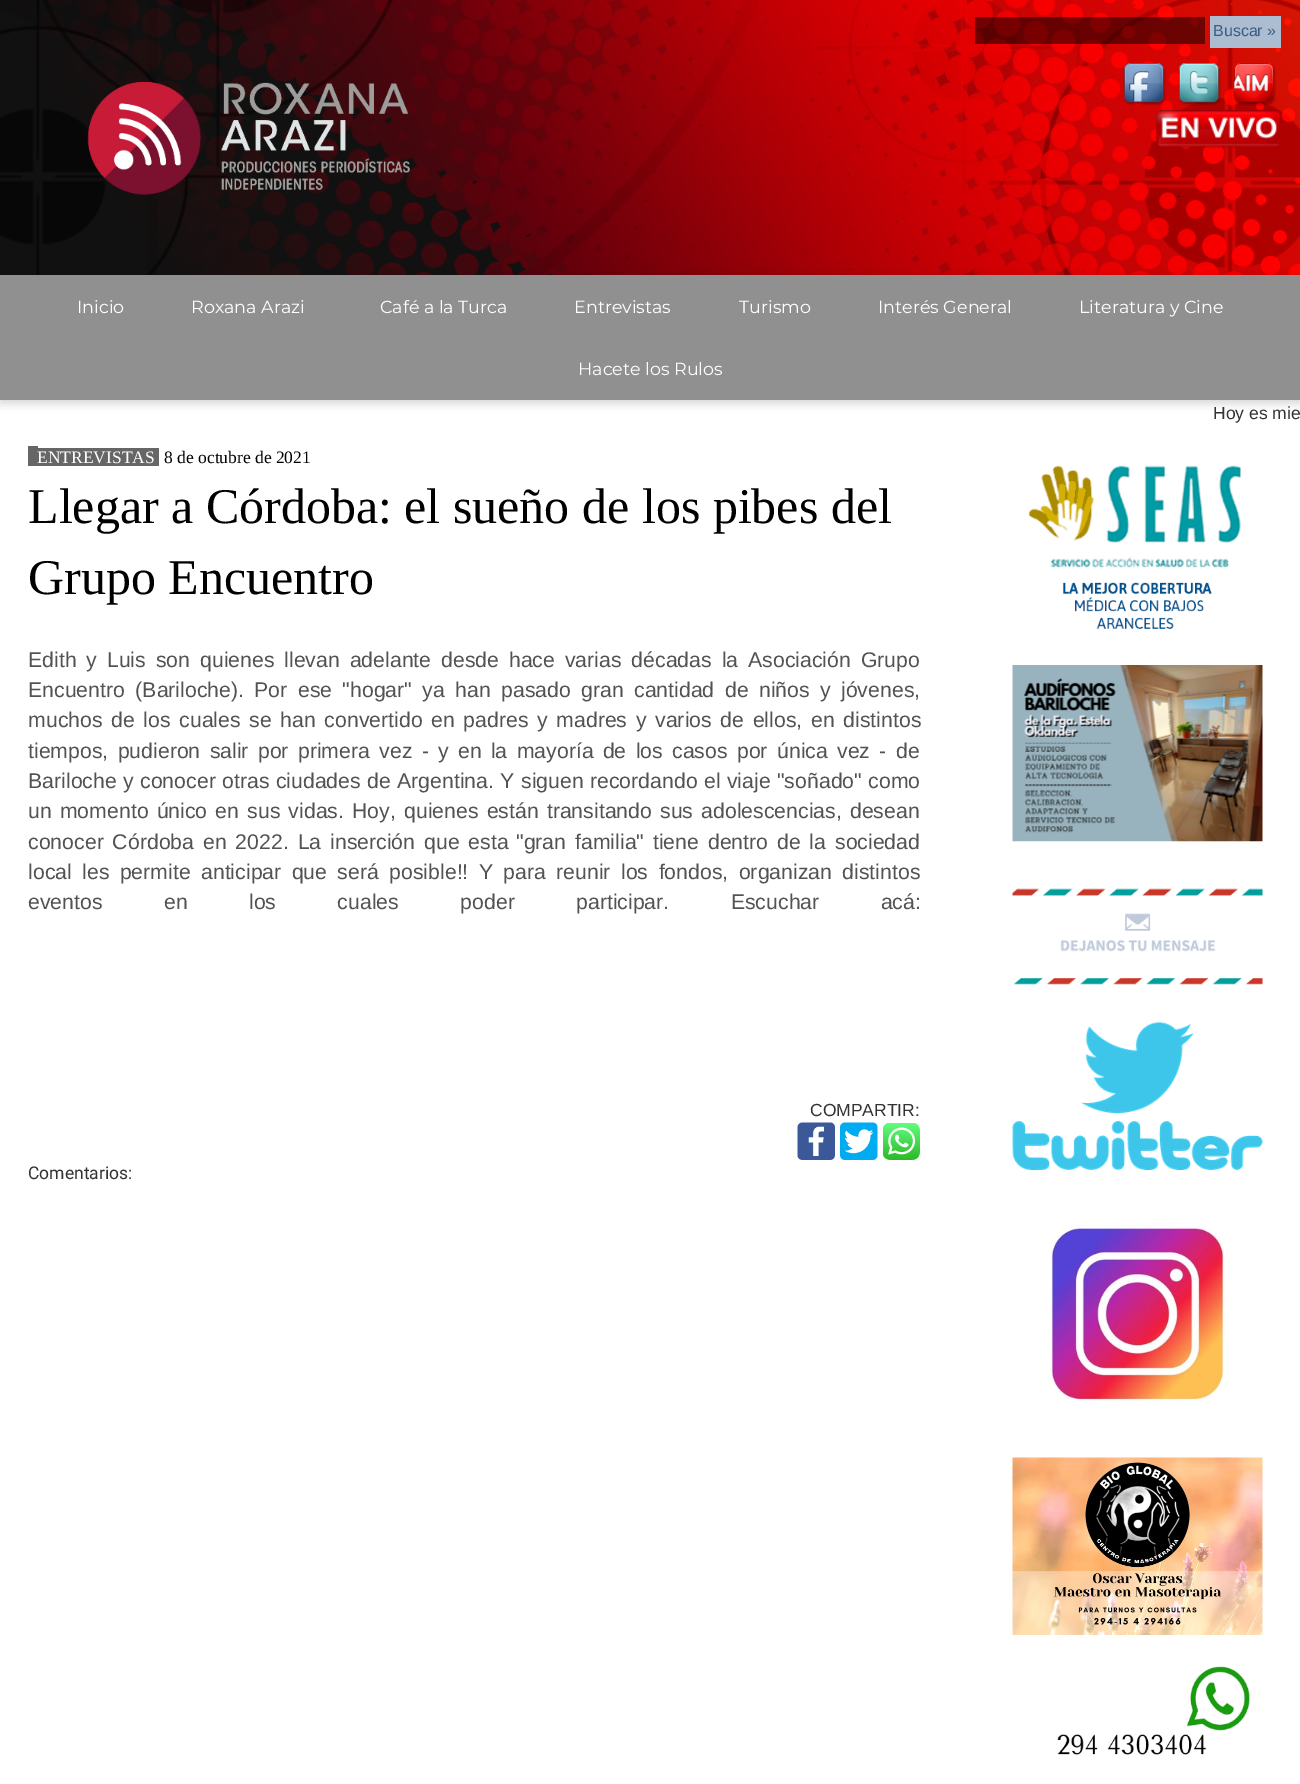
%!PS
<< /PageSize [1300 1784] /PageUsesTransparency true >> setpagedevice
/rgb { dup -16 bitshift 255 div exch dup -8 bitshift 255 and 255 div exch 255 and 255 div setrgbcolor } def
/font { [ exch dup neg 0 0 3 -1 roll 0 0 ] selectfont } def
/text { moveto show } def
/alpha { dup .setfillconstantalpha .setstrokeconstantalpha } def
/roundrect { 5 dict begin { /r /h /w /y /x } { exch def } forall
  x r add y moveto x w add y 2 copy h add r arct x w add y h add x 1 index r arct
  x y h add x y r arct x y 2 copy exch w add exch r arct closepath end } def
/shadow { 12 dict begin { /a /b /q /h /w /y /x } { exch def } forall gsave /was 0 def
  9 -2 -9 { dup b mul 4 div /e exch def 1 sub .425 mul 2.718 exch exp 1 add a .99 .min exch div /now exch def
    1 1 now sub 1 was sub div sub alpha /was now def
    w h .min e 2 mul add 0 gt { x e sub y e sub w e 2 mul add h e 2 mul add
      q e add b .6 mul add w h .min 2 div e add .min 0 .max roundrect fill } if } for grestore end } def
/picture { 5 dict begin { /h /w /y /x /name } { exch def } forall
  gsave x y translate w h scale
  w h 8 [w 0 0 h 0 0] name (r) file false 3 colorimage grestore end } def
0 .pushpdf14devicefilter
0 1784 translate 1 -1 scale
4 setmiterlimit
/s1 { /LiberationSans-Regular 16 font 16#375D84 rgb } def
/s2 { /Montserrat-Thin 17.5 font 16#FFFFFF rgb } def
/s3 { /LiberationSans-Regular 17.5 font 16#333333 rgb } def
/s4 { /LiberationSerif-Regular 17.5 font 16#FFFFFF rgb } def
/s5 { /LiberationSerif-Regular 17.5 font 16#000000 rgb } def
/s6 { /LiberationSerif-Regular 50 font 16#000000 rgb } def
/s7 { /Roboto-Regular 17.5 font 16#333333 rgb } def
16#FFFFFF rgb
0 0 1300 1784 rectfill
(pic1.raw) 0 0 1300 275 picture
0.5 alpha
16#000000 rgb
975 17 230 27 rectfill
1 alpha
16#ACBCD1 rgb
1210 16 71 32 rectfill
s1
(Buscar ») 1213 36 text
(pic2.raw) 1123 63 43 43 picture
(pic3.raw) 1178 63 43 43 picture
(pic4.raw) 1233 63 44 43 picture
(pic5.raw) 1156 110 125 38 picture
(pic6.raw) 87 81 323 114 picture
16#000000 rgb
0 278 1300 125 0 5 0.18 shadow
16#909090 rgb
0 275 1300 125 rectfill
s2
(Inicio) 77 313 text
(Roxana Arazi) 191 313 text
(Café a la Turca) 380 313 text
(Entrevistas) 574 313 text
(Turismo) 739 313 text
(Interés General) 878 313 text
(Literatura y Cine) 1079 313 text
(Hacete los Rulos) 578 375 text
s3
(Hoy es mie) 1213 419 text
16#666666 rgb
28 446 10 20 rectfill
38 448 121 18 rectfill
s4
(ENTREVISTAS) 37 463 text
s5
(8 de octubre de 2021) 164 463 text
s6
(Llegar a Córdoba: el sueño de los pibes del) 28 523 text
(Grupo Encuentro) 28 594 text
/LiberationSans-Regular 21.25 font
16#535353 rgb
28 667 moveto 4 0 32 (Edith y Luis son quienes llevan adelante desde hace varias décadas la Asociación Grupo) widthshow
28 697 moveto 4.5 0 32 (Encuentro \(Bariloche\). Por ese "hogar" ya han pasado gran cantidad de niños y jóvenes,) widthshow
28 727 moveto 2.75 0 32 (muchos de los cuales se han convertido en padres y madres y varios de ellos, en distintos) widthshow
28 758 moveto 3.4 0 32 (tiempos, pudieron salir por primera vez - y en la mayoría de los casos por única vez - de) widthshow
28 788 moveto 0.5 0 32 (Bariloche y conocer otras ciudades de Argentina. Y siguen recordando el viaje "soñado" como) widthshow
28 818 moveto 2.25 0 32 (un momento único en sus vidas. Hoy, quienes están transitando sus adolescencias, desean) widthshow
28 849 moveto 3 0 32 (conocer Córdoba en 2022. La inserción que esta) widthshow
516 849 moveto 3 0 32 ("gran familia" tiene dentro de la sociedad) widthshow
28 879 moveto 4.5 0 32 (local les permite anticipar que será posible!! Y para reunir los fondos, organizan distintos) widthshow
28 909 moveto 55.5 0 32 (eventos en los cuales poder participar. Escuchar acá:) widthshow
s3
(COMPARTIR:) 810 1116 text
(pic7.raw) 797 1122 38 38 picture
(pic8.raw) 840 1122 38 38 picture
(pic9.raw) 883 1123 37 37 picture
s7
(Comentarios:) 28 1179 text
(pic10.raw) 1028 465 213 164 picture
(pic11.raw) 1012 665 251 177 picture
(pic12.raw) 1012 888 251 97 picture
(pic13.raw) 1012 1022 251 148 picture
(pic14.raw) 1050 1225 175 177 picture
(pic15.raw) 1012 1457 251 178 picture
(pic16.raw) 1057 1666 193 89 picture
.poppdf14devicefilter showpage
